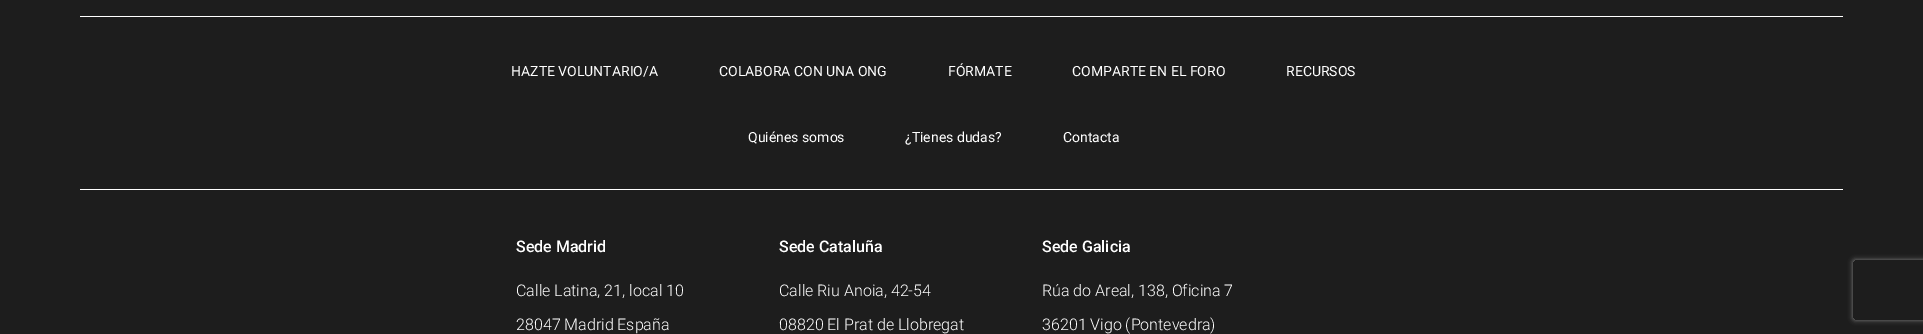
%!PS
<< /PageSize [1923 334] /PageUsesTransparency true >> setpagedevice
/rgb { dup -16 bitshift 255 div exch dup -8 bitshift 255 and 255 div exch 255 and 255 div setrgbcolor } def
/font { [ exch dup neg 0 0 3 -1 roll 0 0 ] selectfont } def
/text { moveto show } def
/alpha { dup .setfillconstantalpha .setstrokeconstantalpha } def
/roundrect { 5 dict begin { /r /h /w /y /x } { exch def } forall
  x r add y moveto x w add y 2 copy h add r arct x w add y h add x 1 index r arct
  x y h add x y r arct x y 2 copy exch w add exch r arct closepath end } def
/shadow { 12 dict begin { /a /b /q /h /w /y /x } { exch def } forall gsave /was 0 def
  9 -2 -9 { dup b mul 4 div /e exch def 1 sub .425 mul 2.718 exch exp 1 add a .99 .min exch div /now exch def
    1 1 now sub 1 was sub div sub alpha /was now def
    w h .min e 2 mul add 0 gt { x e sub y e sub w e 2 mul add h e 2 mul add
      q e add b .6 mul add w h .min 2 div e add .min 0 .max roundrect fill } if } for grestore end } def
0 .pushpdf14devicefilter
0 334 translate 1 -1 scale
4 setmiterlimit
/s1 { /Roboto-Regular 14 font 16#FFFFFF rgb } def
/s2 { /Roboto-Medium 16 font 16#FFFFFF rgb } def
/s3 { /Roboto-Light 16 font 16#FFFFFF rgb } def
16#1D1D1D rgb
0 0 1923 334 rectfill
16#FFFFFF rgb
80 16 1763 1 rectfill
80 189 1763 1 rectfill
s1
(HAZTE VOLUNTARIO/A) 511 76 text
(COLABORA CON UNA ONG) 719 76 text
(FÓRMATE) 948 76 text
(COMPARTE EN EL FORO) 1072 76 text
(RECURSOS) 1286 76 text
(Quiénes somos) 748 142 text
(¿Tienes dudas?) 905 142 text
(Contacta) 1063 142 text
s2
(Sede Madrid) 516 252 text
s3
(Calle Latina, 21, local 10) 516 296 text
(28047 Madrid España) 516 330 text
s2
(Sede Cataluña) 779 252 text
s3
(Calle Riu Anoia, 42-54) 779 296 text
(08820 El Prat de Llobregat) 779 330 text
s2
(Sede Galicia) 1042 252 text
s3
(Rúa do Areal, 138, Oficina 7) 1042 296 text
(36201 Vigo \(Pontevedra\)) 1042 330 text
gsave
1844 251 moveto 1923 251 lineto 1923 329 lineto 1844 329 lineto closepath 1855 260 moveto 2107 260 lineto 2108 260 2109 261 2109 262 curveto 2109 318 lineto 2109 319 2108 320 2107 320 curveto 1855 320 lineto 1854 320 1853 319 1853 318 curveto 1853 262 lineto 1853 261 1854 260 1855 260 curveto closepath eoclip newpath
16#808080 rgb
1853 260 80 60 2 2.5 1 shadow
grestore
.poppdf14devicefilter showpage
